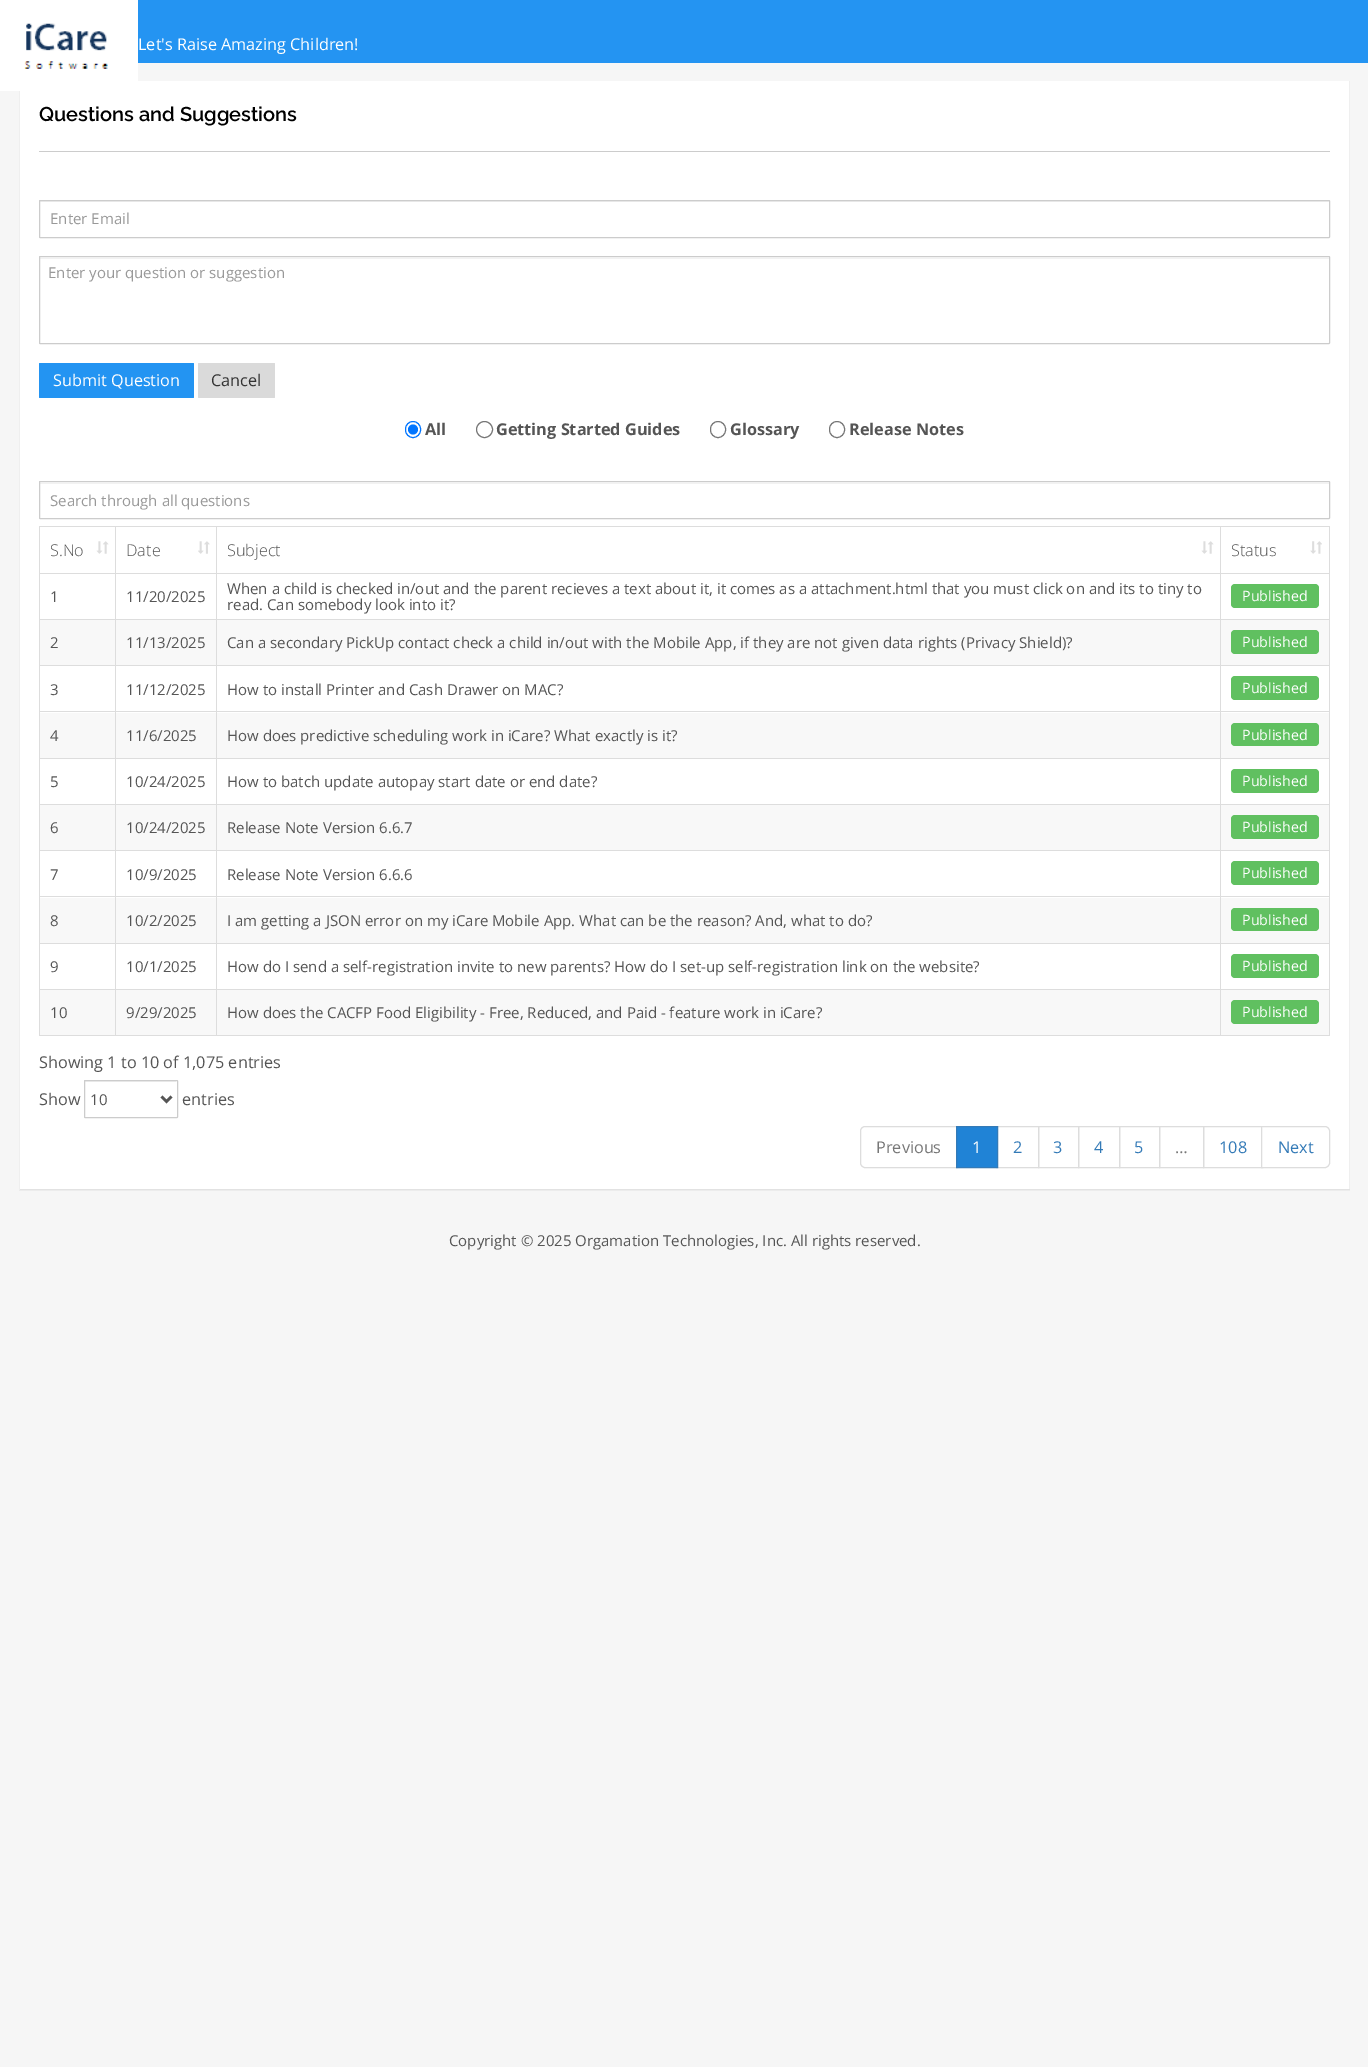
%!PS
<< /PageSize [1368 2067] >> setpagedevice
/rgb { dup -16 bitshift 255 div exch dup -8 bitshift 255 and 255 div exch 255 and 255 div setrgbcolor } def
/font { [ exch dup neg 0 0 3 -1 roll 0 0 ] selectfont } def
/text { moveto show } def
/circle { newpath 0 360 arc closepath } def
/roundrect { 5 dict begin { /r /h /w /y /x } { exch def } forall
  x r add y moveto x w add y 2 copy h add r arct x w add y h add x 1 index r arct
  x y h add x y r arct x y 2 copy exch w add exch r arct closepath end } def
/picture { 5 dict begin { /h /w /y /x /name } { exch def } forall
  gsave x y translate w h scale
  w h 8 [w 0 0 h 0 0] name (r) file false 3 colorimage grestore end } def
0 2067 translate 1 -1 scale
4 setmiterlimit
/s1 { /OpenSans-Regular 16.25 font 16#FFFFFF rgb } def
/s2 { /Raleway-SemiBold 20 font 16#000000 rgb } def
/s3 { /OpenSans-Regular 15 font 16#999999 rgb } def
/s4 { /OpenSans-Regular 16.25 font 16#333333 rgb } def
/s5 { /OpenSans-Bold 16.25 font 16#555555 rgb } def
/s6 { /OpenSans-Light 16.25 font 16#555555 rgb } def
/s7 { /OpenSans-Regular 15 font 16#555555 rgb } def
/s8 { /OpenSans-Regular 14.25 font 16#FFFFFF rgb } def
/s9 { /OpenSans-Regular 16.25 font 16#555555 rgb } def
/s10 { /OpenSans-Regular 16.25 font 16#777777 rgb } def
/s11 { /OpenSans-Regular 16.25 font 16#337AB7 rgb } def
16#F6F6F6 rgb
0 0 1368 2067 rectfill
16#2494F2 rgb
138 0 1230 63 rectfill
16#FFFFFF rgb
20 81 1329 1108 rectfill
(pic1.raw) 0 0 138 91 picture
s1
(Let's Raise Amazing Children!) 138 50 text
16#ECECEC rgb
19 1190 1331 1 rectfill
16#EFEFEF rgb
1349 81 1 1109 rectfill
16#E2E2E2 rgb
19 1189 1331 1 rectfill
16#EFEFEF rgb
19 91 1 1099 rectfill
16#CCCCCC rgb
39 151 1291 1 rectfill
s2
(Questions and Suggestions) 39 121 text
16#F2F2F2 rgb
40 201 1289 1 rectfill
16#CCCCCC rgb
39.5 200.5 1290 37 0.5 roundrect stroke
s3
(Enter Email) 50 224 text
16#F2F2F2 rgb
40 258 1289 1 rectfill
16#CCCCCC rgb
39.5 256.5 1290 87 0.5 roundrect stroke
s3
(Enter your question or suggestion) 48 278 text
16#2394F2 rgb
39 363 155 35 1 roundrect fill
s1
(Submit Question) 53 386 text
16#DADADA rgb
198 363 77 35 1 roundrect fill
s4
(Cancel) 211 386 text
16#0075FF rgb
405.5 421.5 15 16 7.5 roundrect stroke
413 429.5 5 circle fill
s5
(All) 425 435 text
16#767676 rgb
484.5 429.5 8 circle stroke
s5
(Getting Started Guides) 496 435 text
16#767676 rgb
710.5 421.5 15 16 7.5 roundrect stroke
s5
(Glossary) 730 435 text
16#767676 rgb
829.5 421.5 15 16 7.5 roundrect stroke
s5
(Release Notes) 849 435 text
16#F2F2F2 rgb
40 483 1289 1 rectfill
16#CCCCCC rgb
39.5 481.5 1290 37 0.5 roundrect stroke
s3
(Search through all questions) 50 506 text
16#DDDDDD rgb
39 526 1291 1 rectfill
39 1035 1291 1 rectfill
39 526 1 510 rectfill
s6
(S.No) 50 556 text
(pic2.raw) 96 541 13 13 picture
(Date) 126 556 text
(pic3.raw) 198 541 12 13 picture
(Subject) 227 556 text
(pic2.raw) 1201 541 13 13 picture
(Status) 1231 556 text
(pic4.raw) 1310 541 12 13 picture
16#DDDDDD rgb
39 573 1291 1 rectfill
16#F8F8F8 rgb
40 620 1289 45 rectfill
16#DDDDDD rgb
39 619 1291 1 rectfill
39 665 1291 1 rectfill
16#F8F8F8 rgb
40 713 1289 45 rectfill
16#DDDDDD rgb
39 711 1291 1 rectfill
39 758 1291 1 rectfill
16#F8F8F8 rgb
40 805 1289 45 rectfill
16#DDDDDD rgb
39 804 1291 1 rectfill
39 850 1291 1 rectfill
16#F8F8F8 rgb
40 898 1289 45 rectfill
16#DDDDDD rgb
39 896 1291 1 rectfill
39 943 1291 1 rectfill
16#F8F8F8 rgb
40 990 1289 45 rectfill
16#DDDDDD rgb
39 989 1291 1 rectfill
115 989 1 47 rectfill
115 943 1 47 rectfill
115 896 1 48 rectfill
115 850 1 48 rectfill
115 804 1 47 rectfill
115 758 1 47 rectfill
115 711 1 48 rectfill
115 665 1 48 rectfill
115 619 1 47 rectfill
115 526 1 94 rectfill
s7
(1) 50 602 text
16#DDDDDD rgb
216 989 1 47 rectfill
216 943 1 47 rectfill
216 896 1 48 rectfill
216 850 1 48 rectfill
216 804 1 47 rectfill
216 758 1 47 rectfill
216 711 1 48 rectfill
216 665 1 48 rectfill
216 619 1 47 rectfill
216 526 1 94 rectfill
s7
(11/20/2025) 126 602 text
16#DDDDDD rgb
1220 989 1 47 rectfill
1220 943 1 47 rectfill
1220 896 1 48 rectfill
1220 850 1 48 rectfill
1220 804 1 47 rectfill
1220 758 1 47 rectfill
1220 711 1 48 rectfill
1220 665 1 48 rectfill
1220 619 1 47 rectfill
1220 526 1 94 rectfill
s7
(When a child is checked in/out and the parent recieves a text about it, it comes as a attachment.html that you must click on and its to tiny to) 227 594 text
(read. Can somebody look into it?) 227 610 text
16#DDDDDD rgb
1329 989 1 47 rectfill
1329 943 1 47 rectfill
1329 896 1 48 rectfill
1329 850 1 48 rectfill
1329 804 1 47 rectfill
1329 758 1 47 rectfill
1329 711 1 48 rectfill
1329 665 1 48 rectfill
1329 619 1 47 rectfill
1329 526 1 94 rectfill
16#60C060 rgb
1231 584 88 24 4 roundrect fill
s8
(Published) 1242 601 text
s7
(2) 50 648 text
(11/13/2025) 126 648 text
(Can a secondary PickUp contact check a child in/out with the Mobile App, if they are not given data rights \(Privacy Shield\)?) 227 648 text
16#60C060 rgb
1231 630 88 24 4 roundrect fill
s8
(Published) 1242 647 text
s7
(3) 50 695 text
(11/12/2025) 126 695 text
(How to install Printer and Cash Drawer on MAC?) 227 695 text
16#60C060 rgb
1231 676 88 24 4 roundrect fill
s8
(Published) 1242 693 text
s7
(4) 50 741 text
(11/6/2025) 126 741 text
(How does predictive scheduling work in iCare? What exactly is it?) 227 741 text
16#60C060 rgb
1231 723 88 23 4 roundrect fill
s8
(Published) 1242 740 text
s7
(5) 50 787 text
(10/24/2025) 126 787 text
(How to batch update autopay start date or end date?) 227 787 text
16#60C060 rgb
1231 769 88 24 4 roundrect fill
s8
(Published) 1242 786 text
s7
(6) 50 833 text
(10/24/2025) 126 833 text
(Release Note Version 6.6.7) 227 833 text
16#60C060 rgb
1231 815 88 24 4 roundrect fill
s8
(Published) 1242 832 text
s7
(7) 50 880 text
(10/9/2025) 126 880 text
(Release Note Version 6.6.6) 227 880 text
16#60C060 rgb
1231 861 88 24 4 roundrect fill
s8
(Published) 1242 878 text
s7
(8) 50 926 text
(10/2/2025) 126 926 text
(I am getting a JSON error on my iCare Mobile App. What can be the reason? And, what to do?) 227 926 text
16#60C060 rgb
1231 908 88 23 4 roundrect fill
s8
(Published) 1242 925 text
s7
(9) 50 972 text
(10/1/2025) 126 972 text
(How do I send a self-registration invite to new parents? How do I set-up self-registration link on the website?) 227 972 text
16#60C060 rgb
1231 954 88 24 4 roundrect fill
s8
(Published) 1242 971 text
s7
(10) 50 1018 text
(9/29/2025) 126 1018 text
(How does the CACFP Food Eligibility - Free, Reduced, and Paid - feature work in iCare?) 227 1018 text
16#60C060 rgb
1231 1000 88 24 4 roundrect fill
s8
(Published) 1242 1017 text
s9
(Showing 1 to 10 of 1,075 entries) 39 1068 text
(Show) 39 1105 text
16#F2F2F2 rgb
85 1081 91 1 rectfill
16#CCCCCC rgb
84.5 1080.5 93 37 0.5 roundrect stroke
16#555555 rgb
2.5 setlinewidth
161.5 1096.5 moveto 166.5 1101.5 lineto 171.5 1096.5 lineto stroke
s7
(10) 90 1105 text
s9
(entries) 182 1105 text
16#DDDDDD rgb
1 setlinewidth
865 1126.5 moveto 957.5 1126.5 lineto 957.5 1167.5 lineto 865 1167.5 lineto 862.5 1167.5 860.5 1165.5 860.5 1163 curveto 860.5 1131 lineto 860.5 1128.5 862.5 1126.5 865 1126.5 curveto closepath stroke
s10
(Previous) 876 1153 text
16#DDDDDD rgb
996.5 1126.5 42 41 rectstroke
16#2083D6 rgb
956.5 1126.5 moveto 997.5 1126.5 lineto 997.5 1167.5 lineto 956.5 1167.5 lineto closepath gsave fill grestore
16#337AB7 rgb
stroke
s1
(1) 972 1153 text
s11
(2) 1013 1153 text
16#DDDDDD rgb
1038.5 1126.5 40 41 rectstroke
s11
(3) 1053 1153 text
16#DDDDDD rgb
1078.5 1126.5 41 41 rectstroke
s11
(4) 1094 1153 text
16#DDDDDD rgb
1119.5 1126.5 40 41 rectstroke
s11
(5) 1134 1153 text
16#DDDDDD rgb
1159.5 1126.5 44 41 rectstroke
s10
(…) 1175 1153 text
16#DDDDDD rgb
1203.5 1126.5 59 41 rectstroke
s11
(108) 1219 1153 text
16#FFFFFF rgb
1261.5 1126.5 moveto 1325 1126.5 lineto 1327.5 1126.5 1329.5 1128.5 1329.5 1131 curveto 1329.5 1163 lineto 1329.5 1165.5 1327.5 1167.5 1325 1167.5 curveto 1261.5 1167.5 lineto closepath gsave fill grestore
16#DDDDDD rgb
stroke
s11
(Next) 1278 1153 text
s7
(Copyright © 2025 Orgamation Technologies, Inc. All rights reserved.) 449 1246 text
showpage
